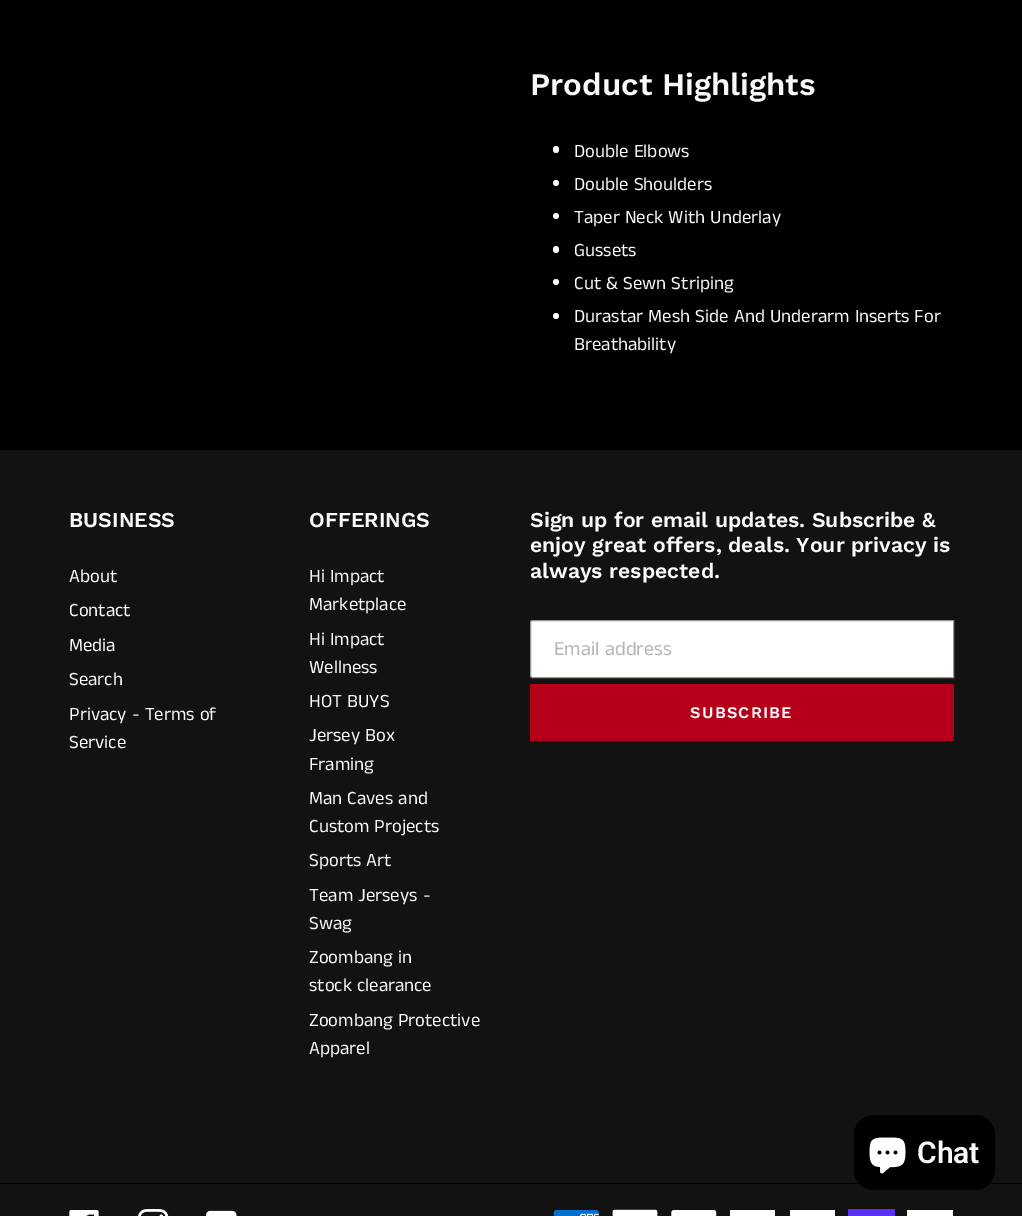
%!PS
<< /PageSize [1022 1216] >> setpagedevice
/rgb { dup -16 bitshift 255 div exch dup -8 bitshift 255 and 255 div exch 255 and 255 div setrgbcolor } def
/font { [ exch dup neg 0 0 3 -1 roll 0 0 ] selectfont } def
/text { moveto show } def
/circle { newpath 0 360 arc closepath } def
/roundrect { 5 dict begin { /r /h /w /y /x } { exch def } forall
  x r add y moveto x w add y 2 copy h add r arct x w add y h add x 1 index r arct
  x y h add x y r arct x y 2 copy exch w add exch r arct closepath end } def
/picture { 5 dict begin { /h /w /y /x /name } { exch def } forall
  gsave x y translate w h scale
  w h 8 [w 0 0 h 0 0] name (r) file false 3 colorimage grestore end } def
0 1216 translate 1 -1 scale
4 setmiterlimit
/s1 { /WorkSans-SemiBold 31.25 font 16#FAFAFA rgb } def
/s2 { /AnekTamil-Regular 18.75 font 16#FAFAFA rgb } def
/s3 { /WorkSans-SemiBold 21.25 font 16#FAFAFA rgb } def
/s4 { /AnekTamil-Regular 20 font 16#B6B5B5 rgb } def
/s5 { /Roboto-SemiBold 30 font 16#FAFAFA rgb } def
16#000000 rgb
0 0 1022 1216 rectfill
s1
(Product Highlights) 530 95 text
553 146 6 7 3 roundrect fill
s2
(Double Elbows) 574 157 text
556 183 3 circle fill
(Double Shoulders) 574 190 text
556 216 3 circle fill
(Taper Neck With Underlay) 574 223 text
553 246 6 7 3 roundrect fill
(Gussets) 574 256 text
556 282 3 circle fill
(Cut & Sewn Striping) 574 289 text
556 316 3 circle fill
(Durastar Mesh Side And Underarm Inserts For) 574 322 text
(Breathability) 574 350 text
16#131212 rgb
0 450 1022 766 rectfill
s3
(BUSINESS) 69 527 text
s2
(About) 69 582 text
(Contact) 69 616 text
(Media) 69 651 text
(Search) 69 685 text
(Privacy - Terms of) 69 720 text
(Service) 69 748 text
s3
(OFFERINGS) 309 527 text
s2
(Hi Impact) 309 582 text
(Marketplace) 309 610 text
(Hi Impact) 309 645 text
(Wellness) 309 673 text
(HOT BUYS) 309 707 text
(Jersey Box) 309 741 text
(Framing) 309 770 text
(Man Caves and) 309 804 text
(Custom Projects) 309 832 text
(Sports Art) 309 866 text
(Team Jerseys -) 309 901 text
(Swag) 309 929 text
(Zoombang in) 309 963 text
(stock clearance) 309 991 text
(Zoombang Protective) 309 1026 text
(Apparel) 309 1054 text
s3
(Sign up for email updates. Subscribe &) 530 527 text
(enjoy great offers, deals. Your privacy is) 530 552 text
(always respected.) 530 578 text
16#FFFFFF rgb
532.5 620.5 moveto 953.5 620.5 lineto 953.5 677.5 lineto 532.5 677.5 lineto 531.5 677.5 530.5 676.5 530.5 675.5 curveto 530.5 622.5 lineto 530.5 621.5 531.5 620.5 532.5 620.5 curveto closepath gsave fill grestore
16#949494 rgb
stroke
s4
(Email address) 554 655 text
16#B6001A rgb
530 684 moveto 951.5 684 lineto 953 684 954 685 954 686.5 curveto 954 738.5 lineto 954 740 953 741 951.5 741 curveto 530 741 lineto closepath fill
/WorkSans-SemiBold 16.25 font
16#FAFAFA rgb
690 718 moveto 1.25 0 (SUBSCRIBE) ashow
16#000000 rgb
0 1183 1022 1 rectfill
(pic1.raw) 69 1210 30 6 picture
(pic2.raw) 138 1209 31 7 picture
(pic3.raw) 206 1210 31 6 picture
(pic4.raw) 553 1210 46 6 picture
(pic5.raw) 611 1209 48 7 picture
(pic6.raw) 671 1210 46 6 picture
16#FFFFFF rgb
730 1210 45 6 rectfill
790 1210 45 6 rectfill
16#5A31F4 rgb
848 1209 47 7 rectfill
16#FFFFFF rgb
907 1210 46 6 rectfill
16#000000 rgb
854 1115 141 75 20 roundrect fill
(pic7.raw) 869 1137 37 37 picture
s5
(Chat) 917 1163 text
showpage
